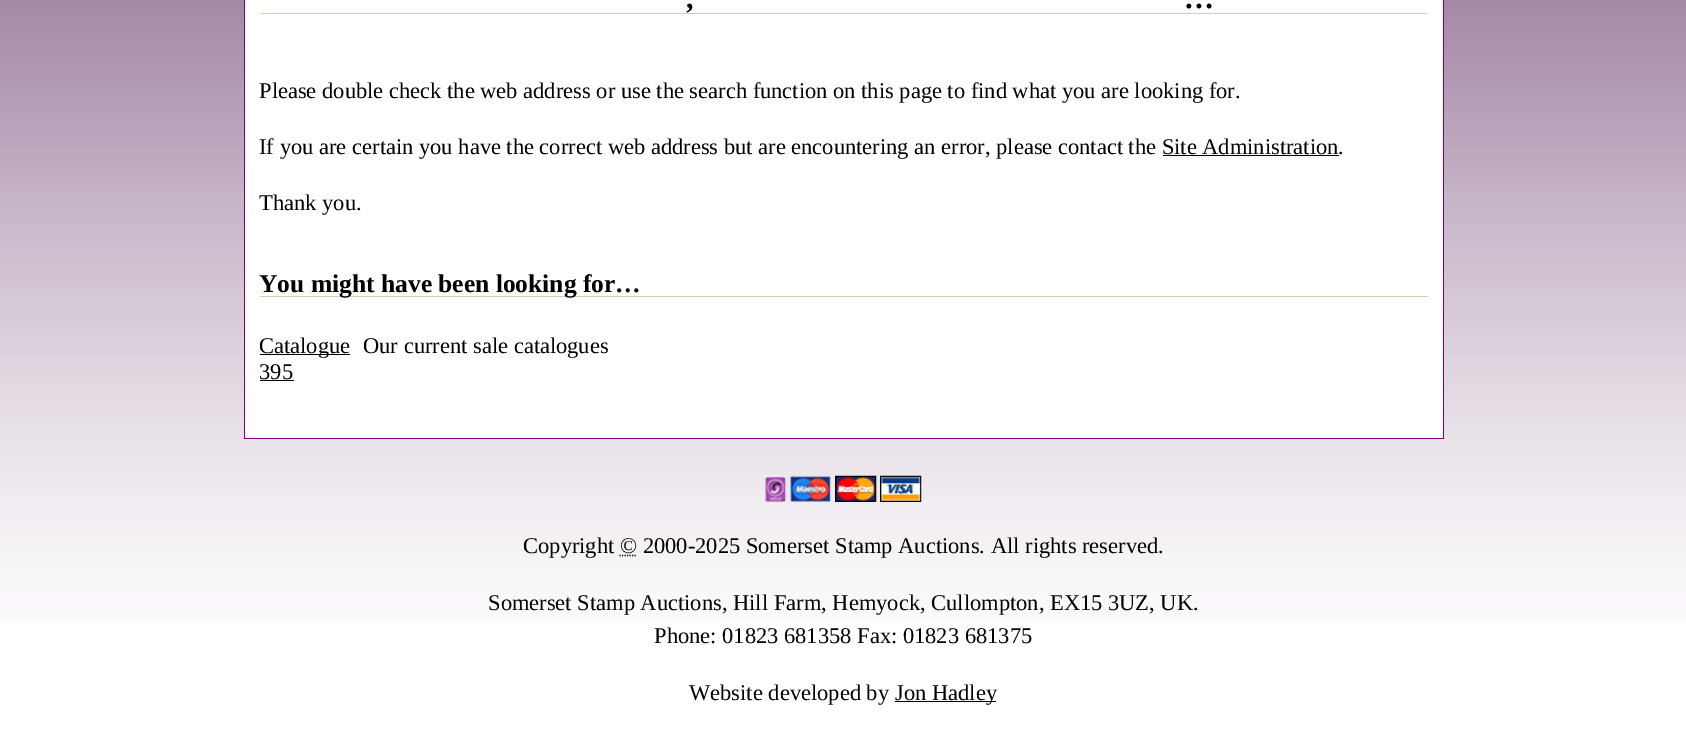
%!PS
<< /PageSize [1686 731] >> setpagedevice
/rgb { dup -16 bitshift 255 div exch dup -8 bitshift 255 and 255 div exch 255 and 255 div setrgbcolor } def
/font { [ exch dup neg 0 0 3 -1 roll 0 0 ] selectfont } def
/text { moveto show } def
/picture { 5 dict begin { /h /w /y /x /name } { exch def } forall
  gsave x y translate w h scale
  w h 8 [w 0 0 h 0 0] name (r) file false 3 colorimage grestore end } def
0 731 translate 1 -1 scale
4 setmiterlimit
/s1 { /LiberationSerif-Bold 30 font 16#000000 rgb } def
/s2 { /LiberationSerif-Regular 22.5 font 16#000000 rgb } def
/s3 { /LiberationSerif-Bold 25.5 font 16#000000 rgb } def
16#FFFFFF rgb
0 0 1686 731 rectfill
(pic1.raw) 0 0 1686 621 picture
245 0 1198 438 rectfill
16#800080 rgb
1443 0 1 439 rectfill
244 438 1200 1 rectfill
244 0 1 439 rectfill
16#D9CEB2 rgb
260 13 1168 1 rectfill
s1
(,) 686 8 text
(…) 1184 8 text
s2
(Please double check the web address or use the search function on this page to find what you are looking for.) 259 98 text
(If you are certain you have the correct web address but are encountering an error, please contact the Site Administration.) 259 154 text
1163 155 176 1 rectfill
(Thank you.) 259 210 text
16#D9CEB2 rgb
260 296 1168 1 rectfill
s3
(You might have been looking for…) 259 292 text
260 354 90 1 rectfill
s2
(Catalogue) 259 353 text
(Our current sale catalogues) 363 353 text
(395) 259 379 text
260 380 34 1 rectfill
(pic2.raw) 765 475 22 27 picture
(pic3.raw) 790 475 42 27 picture
(pic4.raw) 835 475 42 27 picture
(pic5.raw) 880 475 42 27 picture
(Copyright © 2000-2025 Somerset Stamp Auctions. All rights reserved.) 523 553 text
1.2 setlinewidth
[1.25 1.25] 0 setdash
619.5 555.5 moveto 636.5 555.5 lineto stroke
(Somerset Stamp Auctions, Hill Farm, Hemyock, Cullompton, EX15 3UZ, UK.) 488 610 text
(Phone: 01823 681358 Fax: 01823 681375) 654 643 text
(Website developed by) 689 700 text
895 701 101 1 rectfill
(Jon Hadley) 895 700 text
showpage
